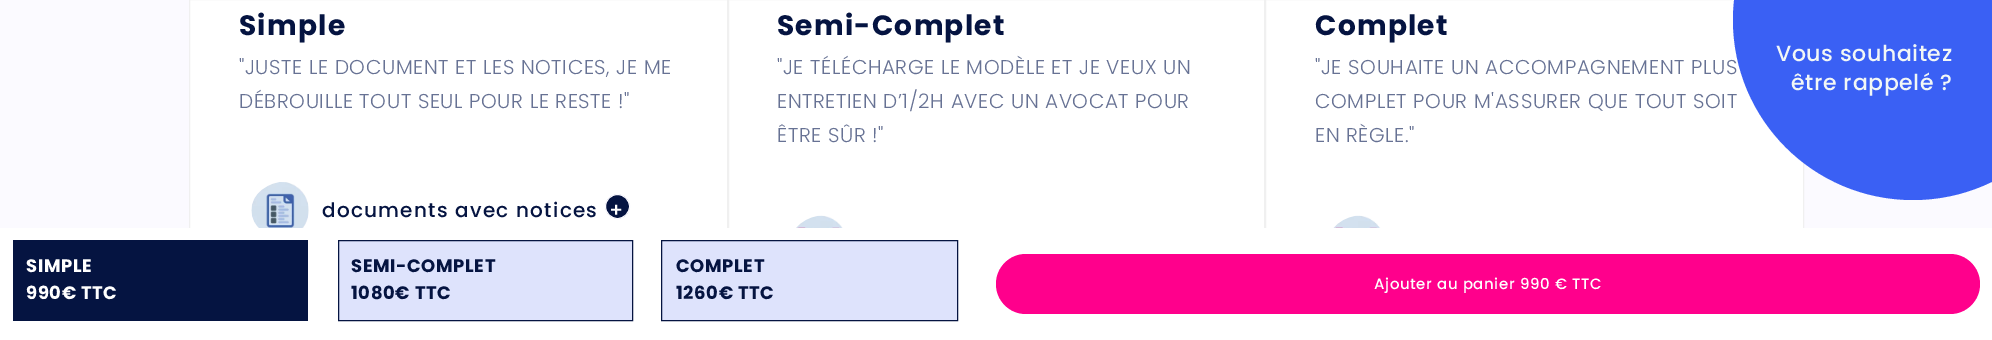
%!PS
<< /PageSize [1992 340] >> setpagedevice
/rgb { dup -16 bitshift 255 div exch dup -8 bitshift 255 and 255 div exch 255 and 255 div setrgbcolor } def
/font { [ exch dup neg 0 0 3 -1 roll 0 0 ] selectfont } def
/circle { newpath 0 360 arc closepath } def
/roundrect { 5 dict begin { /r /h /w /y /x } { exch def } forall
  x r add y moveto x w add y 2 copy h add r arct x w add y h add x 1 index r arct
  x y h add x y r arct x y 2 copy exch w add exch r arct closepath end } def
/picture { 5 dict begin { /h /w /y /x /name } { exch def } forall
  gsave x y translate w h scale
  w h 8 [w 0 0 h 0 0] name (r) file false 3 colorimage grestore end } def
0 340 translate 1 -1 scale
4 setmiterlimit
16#FBFAFF rgb
0 0 1992 340 rectfill
16#FFFFFF rgb
190 0 1613 228 rectfill
16#F0F0F0 rgb
189.5 -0.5 538 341 rectstroke
/Poppins-Bold 28 font
16#051441 rgb
239 35 moveto 1.25 0 (Simple) ashow
/Poppins-Light 20 font
16#677294 rgb
239 74 moveto 0.6 0 ("JUSTE LE DOCUMENT ET LES NOTICES, JE ME) ashow
239 108 moveto 0.6 0 (DÉBROUILLE TOUT SEUL POUR LE RESTE !") ashow
(pic1.raw) 251 182 58 46 picture
/Poppins-Medium 20 font
16#051441 rgb
322 217 moveto 1.25 0 (documents avec notices) ashow
617.5 206.5 12 circle gsave fill grestore
16#FBFAFF rgb
stroke
16#FFFFFF rgb
609 217 moveto 1.25 0 (+) ashow
16#F0F0F0 rgb
728.5 -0.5 536 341 rectstroke
/Poppins-Bold 28 font
16#051441 rgb
777 35 moveto 1.25 0 (Semi-Complet) ashow
/Poppins-Light 20 font
16#677294 rgb
777 74 moveto 0.6 0 ("JE TÉLÉCHARGE LE MODÈLE ET JE VEUX UN) ashow
777 108 moveto 0.6 0 (ENTRETIEN D’1/2H AVEC UN AVOCAT POUR) ashow
777 142 moveto 0.6 0 (ÊTRE SÛR !") ashow
(pic2.raw) 796 215 47 13 picture
16#F0F0F0 rgb
1265.5 -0.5 538 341 rectstroke
/Poppins-Bold 28 font
16#051441 rgb
1315 35 moveto 1.25 0 (Complet) ashow
/Poppins-Light 20 font
16#677294 rgb
1315 74 moveto 0.6 0 ("JE SOUHAITE UN ACCOMPAGNEMENT PLUS) ashow
1315 108 moveto 0.6 0 (COMPLET POUR M'ASSURER QUE TOUT SOIT) ashow
1315 142 moveto 0.6 0 (EN RÈGLE.") ashow
(pic3.raw) 1333 215 48 13 picture
16#FFFFFF rgb
0 228 1992 112 rectfill
16#051441 rgb
13 240 295 81 rectfill
/Poppins-Bold 18 font
16#FFFFFF rgb
26 272 moveto 0.6 0 (SIMPLE) ashow
26 299 moveto 0.6 0 (990€ TTC) ashow
16#DEE3FC rgb
338.5 240.5 moveto 632.5 240.5 lineto 632.5 320.5 lineto 338.5 320.5 lineto closepath gsave fill grestore
16#051441 rgb
stroke
351 272 moveto 0.6 0 (SEMI-COMPLET) ashow
351 299 moveto 0.6 0 (1080€ TTC) ashow
16#DEE3FC rgb
661.5 240.5 moveto 957.5 240.5 lineto 957.5 320.5 lineto 661.5 320.5 lineto closepath gsave fill grestore
16#051441 rgb
stroke
676 272 moveto 0.6 0 (COMPLET) ashow
676 299 moveto 0.6 0 (1260€ TTC) ashow
16#FF008C rgb
996 254 984 60 30 roundrect fill
/Poppins-Medium 15 font
16#FFFFFF rgb
1374 289 moveto 0.6 0 (Ajouter au panier 990 € TTC) ashow
16#3A60F4 rgb
1913 20 180 circle fill
/Poppins-Medium 22 font
16#F2F7F6 rgb
1776 61 moveto 0.6 0 (Vous souhaitez) ashow
1791 90 moveto 0.6 0 (être rappelé ?) ashow
showpage
